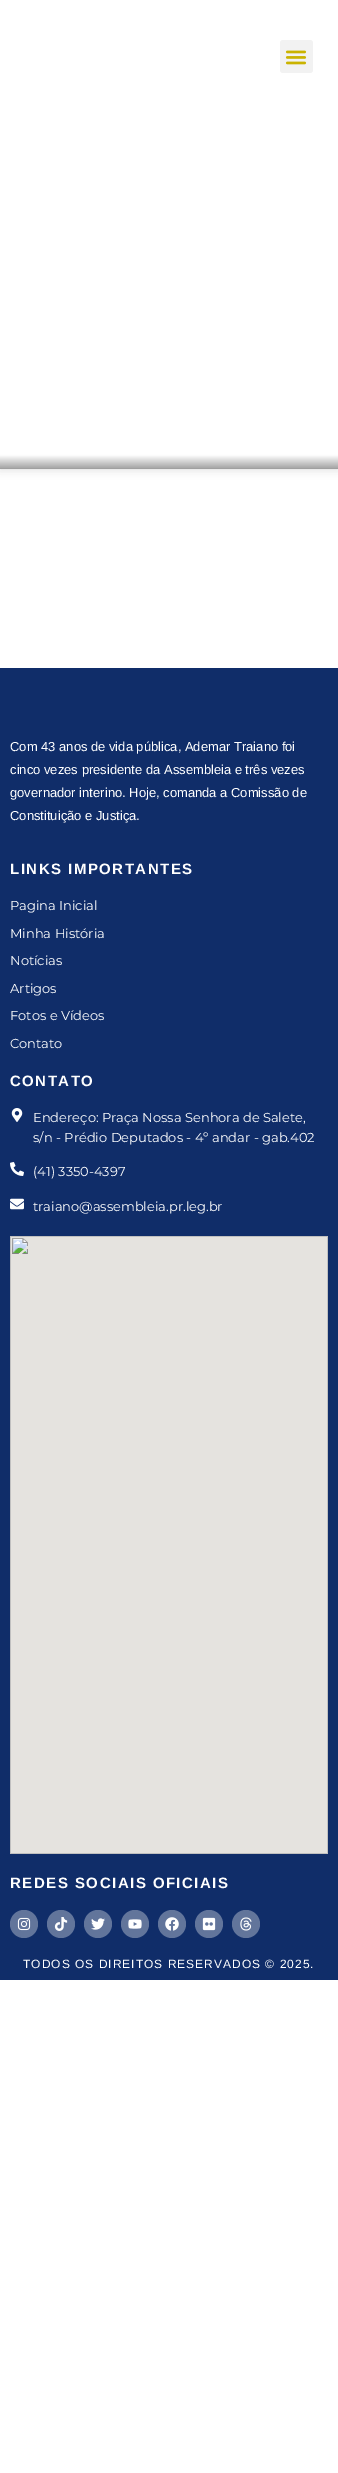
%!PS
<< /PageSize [338 2473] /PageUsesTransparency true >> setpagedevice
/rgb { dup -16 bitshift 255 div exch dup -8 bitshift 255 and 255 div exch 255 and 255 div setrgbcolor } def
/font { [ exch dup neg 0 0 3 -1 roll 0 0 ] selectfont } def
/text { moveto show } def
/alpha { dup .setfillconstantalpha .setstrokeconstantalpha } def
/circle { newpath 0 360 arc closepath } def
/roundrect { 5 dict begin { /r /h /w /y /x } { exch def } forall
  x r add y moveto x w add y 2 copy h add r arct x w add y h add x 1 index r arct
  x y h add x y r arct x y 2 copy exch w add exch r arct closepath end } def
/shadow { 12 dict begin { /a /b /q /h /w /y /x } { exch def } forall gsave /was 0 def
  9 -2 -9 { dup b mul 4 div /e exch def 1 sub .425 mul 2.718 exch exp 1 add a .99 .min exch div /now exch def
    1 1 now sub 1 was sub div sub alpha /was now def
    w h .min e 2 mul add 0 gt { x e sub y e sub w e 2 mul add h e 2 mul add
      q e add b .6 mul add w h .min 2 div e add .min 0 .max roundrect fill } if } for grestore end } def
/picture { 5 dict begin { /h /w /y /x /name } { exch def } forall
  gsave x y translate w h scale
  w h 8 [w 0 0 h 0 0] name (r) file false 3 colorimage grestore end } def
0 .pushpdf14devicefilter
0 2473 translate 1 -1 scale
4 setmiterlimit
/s1 { /LiberationSans-Regular 13 font 16#FFFFFF rgb } def
/s2 { /Montserrat-Regular 13 font 16#FFFFFF rgb } def
16#FFFFFF rgb
0 0 338 2473 rectfill
16#000000 rgb
0 0 338 469 0 5 0.15 shadow
gsave 0 0 moveto 338 0 lineto 338 469 lineto 0 469 lineto closepath clip newpath
<< /ShadingType 2 /ColorSpace /DeviceRGB /Coords [169 0 169 469] /Extend [true true] /Function << /FunctionType 3 /Domain [0 1] /Functions [<< /FunctionType 2 /Domain [0 1] /C0 [1 1 1] /C1 [1 1 1] /N 1 >> << /FunctionType 2 /Domain [0 1] /C0 [1 1 1] /C1 [0.627 0.627 0.627] /N 1 >>] /Bounds [0.97] /Encode [0 1 0 1] >> >> shfill grestore
16#F2F2F2 rgb
280 40 33 33 3 roundrect fill
(pic1.raw) 285 50 22 15 picture
16#102D69 rgb
0 668 338 1312 rectfill
s1
(Com 43 anos de vida pública, Ademar Traiano foi) 10 751 text
(cinco vezes presidente da Assembleia e três vezes) 10 774 text
(governador interino. Hoje, comanda a Comissão de) 10 797 text
(Constituição e Justiça.) 10 820 text
/LiberationSans-Bold 15 font
10 874 moveto 1.5 0 (LINKS IMPORTANTES) ashow
s2
(Pagina Inicial) 10 910 text
(Minha História) 10 938 text
(Notícias) 10 965 text
(Artigos) 10 993 text
(Fotos e Vídeos) 10 1020 text
(Contato) 10 1048 text
/LiberationSans-Bold 15 font
10 1086 moveto 1.5 0 (CONTATO) ashow
(pic2.raw) 11 1108 12 14 picture
s2
(Endereço: Praça Nossa Senhora de Salete,) 33 1122 text
(s/n - Prédio Deputados - 4º andar - gab.402) 33 1142 text
(pic3.raw) 10 1162 14 14 picture
(\(41\) 3350-4397) 33 1176 text
(pic4.raw) 10 1198 14 12 picture
(traiano@assembleia.pr.leg.br) 33 1211 text
(pic5.raw) 10 1236 318 618 picture
/LiberationSans-Bold 15 font
10 1888 moveto 1.5 0 (REDES SOCIAIS OFICIAIS) ashow
16#62759B rgb
24 1924 14 circle fill
(pic6.raw) 17 1917 14 14 picture
61 1924 14 circle fill
(pic7.raw) 54 1917 14 14 picture
98 1924 14 circle fill
(pic8.raw) 91 1918 14 12 picture
135 1924 14 circle fill
(pic9.raw) 128 1919 14 10 picture
172 1924 14 circle fill
(pic10.raw) 165 1917 14 14 picture
209 1924 14 circle fill
(pic11.raw) 202 1917 14 14 picture
246 1924 14 circle fill
(pic12.raw) 240 1917 12 14 picture
/LiberationSans-Regular 12 font
16#FFFFFF rgb
23 1968 moveto 1 0 (TODOS OS DIREITOS RESERVADOS © 2025.) ashow
.poppdf14devicefilter showpage
